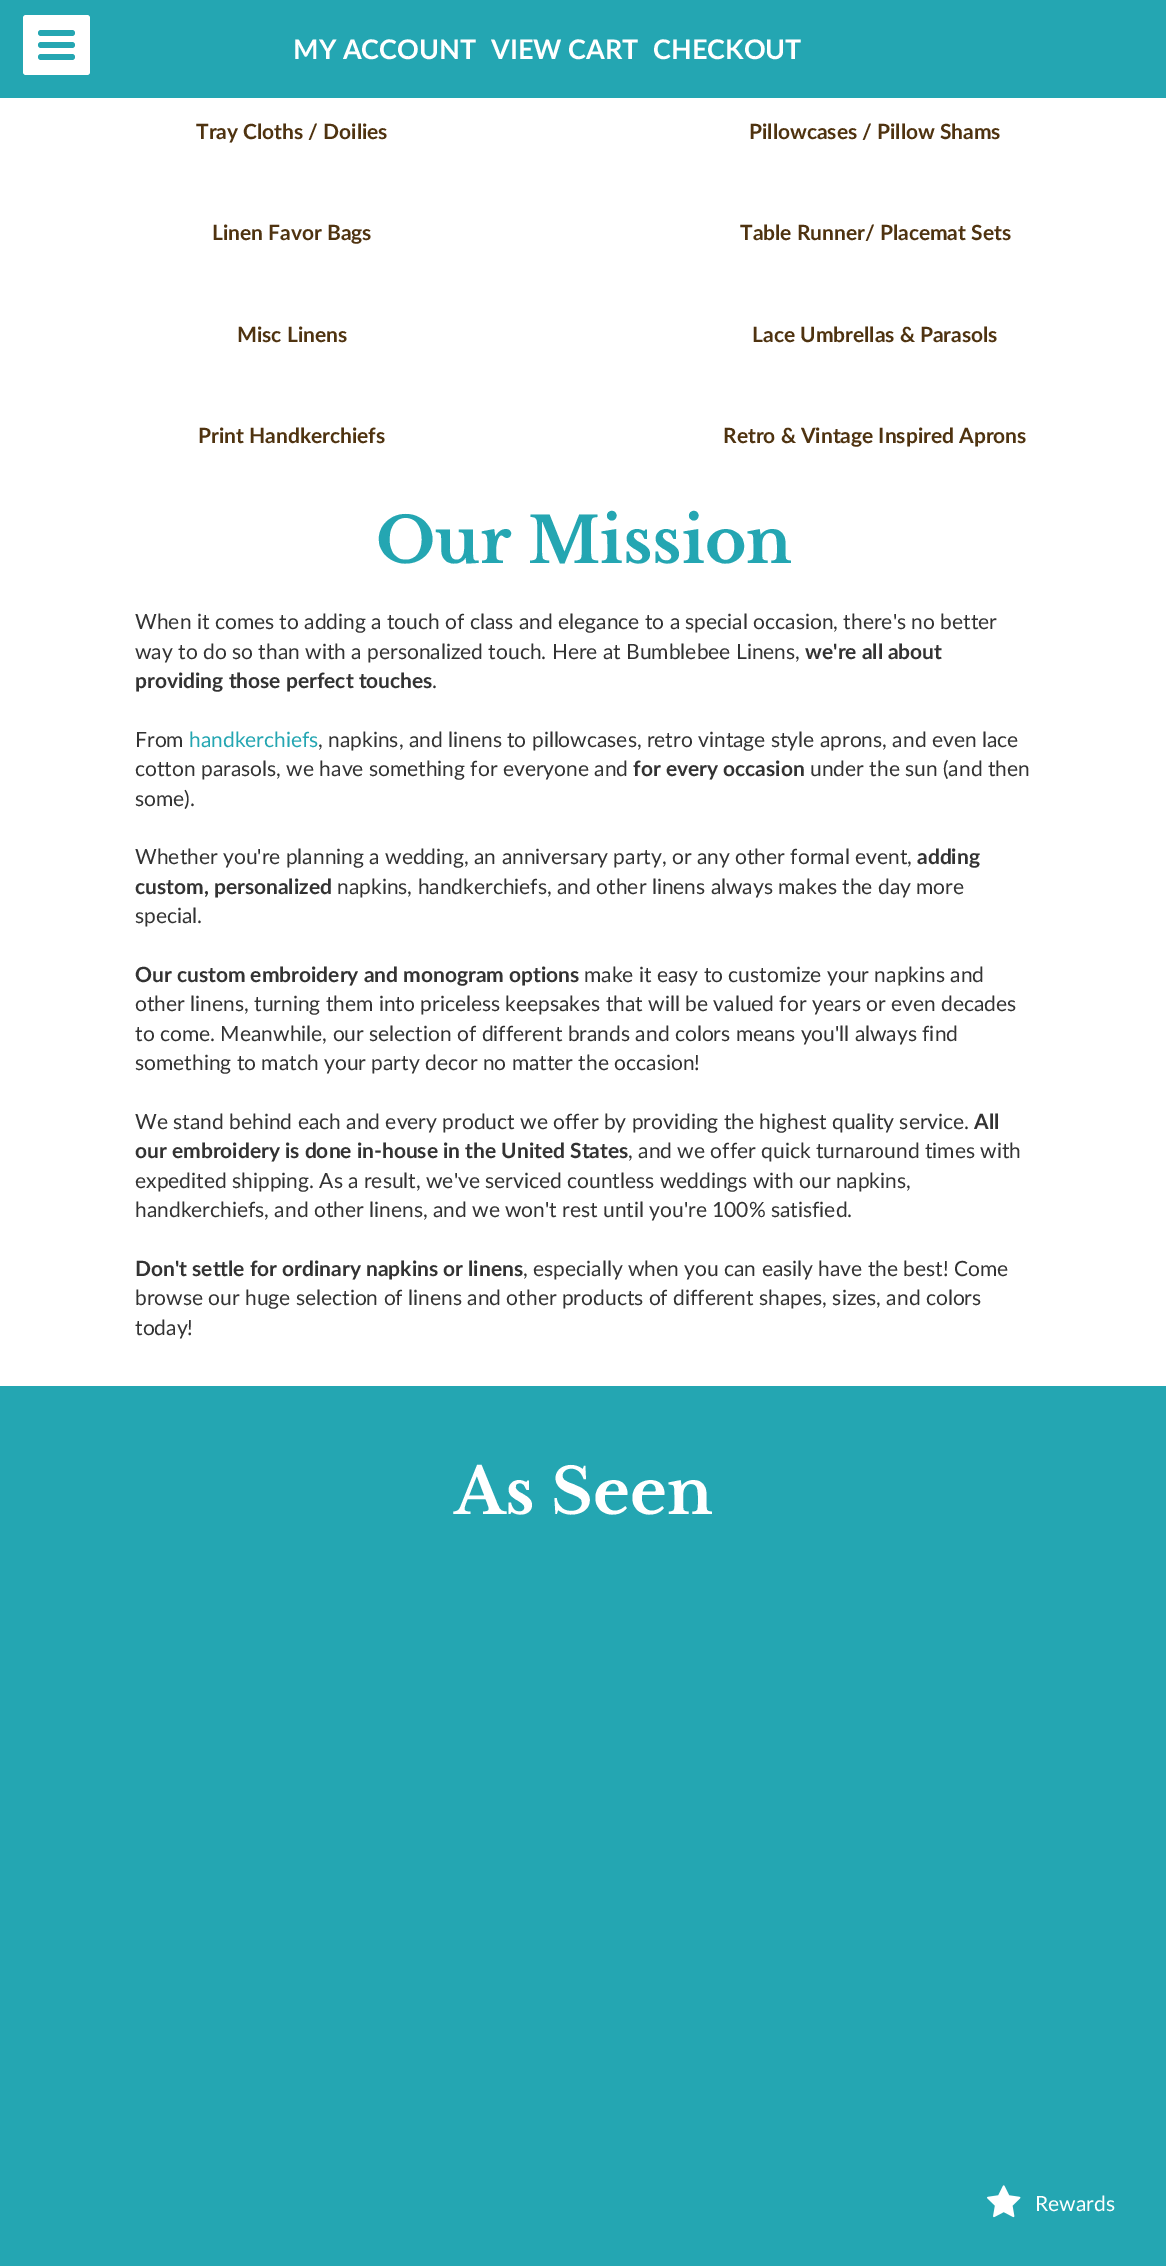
%!PS
<< /PageSize [1166 2266] >> setpagedevice
/rgb { dup -16 bitshift 255 div exch dup -8 bitshift 255 and 255 div exch 255 and 255 div setrgbcolor } def
/font { [ exch dup neg 0 0 3 -1 roll 0 0 ] selectfont } def
/text { moveto show } def
/roundrect { 5 dict begin { /r /h /w /y /x } { exch def } forall
  x r add y moveto x w add y 2 copy h add r arct x w add y h add x 1 index r arct
  x y h add x y r arct x y 2 copy exch w add exch r arct closepath end } def
/picture { 5 dict begin { /h /w /y /x /name } { exch def } forall
  gsave x y translate w h scale
  w h 8 [w 0 0 h 0 0] name (r) file false 3 colorimage grestore end } def
0 2266 translate 1 -1 scale
4 setmiterlimit
/s1 { /Lato-Bold 27 font 16#FFFFFF rgb } def
/s2 { /Lato-Bold 21 font 16#4F3310 rgb } def
/s3 { /LibreBaskerville-Bold 63 font 16#24A6B2 rgb } def
/s4 { /Lato-Regular 21 font 16#333333 rgb } def
/s5 { /Lato-Bold 21 font 16#333333 rgb } def
/s6 { /Lato-Regular 21 font 16#24A6B2 rgb } def
/s7 { /LibreBaskerville-Bold 63 font 16#FFFFFF rgb } def
/s8 { /Lato-Regular 21 font 16#FFFFFF rgb } def
16#FFFFFF rgb
0 0 1166 2266 rectfill
16#24A6B2 rgb
0 0 1166 98 rectfill
16#FFFFFF rgb
23 15 67 60 3 roundrect fill
16#24A6B2 rgb
38 30 37 6 3 roundrect fill
38 42 37 6 3 roundrect fill
38 54 37 6 3 roundrect fill
s1
(MY ACCOUNT) 293 59 text
(VIEW CART) 491 59 text
(CHECKOUT) 653 59 text
s2
(Tray Cloths / Doilies) 196 139 text
(Pillowcases / Pillow Shams) 749 139 text
(Linen Favor Bags) 212 240 text
(Table Runner/ Placemat Sets) 740 240 text
(Misc Linens) 237 342 text
(Lace Umbrellas & Parasols) 752 342 text
(Print Handkerchiefs) 198 443 text
(Retro & Vintage Inspired Aprons) 723 443 text
s3
(Our Mission) 376 563 text
s4
(When it comes to adding a touch of class and elegance to a special occasion, there's no better) 135 629 text
(way to do so than with a personalized touch. Here at Bumblebee Linens,) 135 659 text
s5
(we're all about) 805 659 text
(providing those perfect touches) 135 688 text
s4
(.) 432 688 text
(From) 135 747 text
s6
(handkerchiefs) 189 747 text
s4
(, napkins, and linens to pillowcases, retro vintage style aprons, and even lace) 318 747 text
(cotton parasols, we have something for everyone and) 135 776 text
s5
(for every occasion) 633 776 text
s4
(under the sun \(and then) 810 776 text
(some\).) 135 806 text
(Whether you're planning a wedding, an anniversary party, or any other formal event,) 135 864 text
s5
(adding) 917 864 text
(custom, personalized) 135 894 text
s4
(napkins, handkerchiefs, and other linens always makes the day more) 337 894 text
(special.) 135 923 text
s5
(Our custom embroidery and monogram options) 135 982 text
s4
(make it easy to customize your napkins and) 584 982 text
(other linens, turning them into priceless keepsakes that will be valued for years or even decades) 135 1011 text
(to come. Meanwhile, our selection of different brands and colors means you'll always find) 135 1041 text
(something to match your party decor no matter the occasion!) 135 1070 text
(We stand behind each and every product we offer by providing the highest quality service.) 135 1129 text
s5
(All) 974 1129 text
(our embroidery is done in-house in the United States) 135 1158 text
s4
(, and we offer quick turnaround times with) 628 1158 text
(expedited shipping. As a result, we've serviced countless weddings with our napkins,) 135 1188 text
(handkerchiefs, and other linens, and we won't rest until you're 100% satisfied.) 135 1217 text
s5
(Don't settle for ordinary napkins or linens) 135 1276 text
s4
(, especially when you can easily have the best! Come) 523 1276 text
(browse our huge selection of linens and other products of different shapes, sizes, and colors) 135 1305 text
(today!) 135 1335 text
16#24A6B2 rgb
0 1386 1166 880 rectfill
s7
(As Seen) 454 1514 text
(pic1.raw) 987 2185 34 33 picture
s8
(Rewards) 1035 2211 text
showpage
